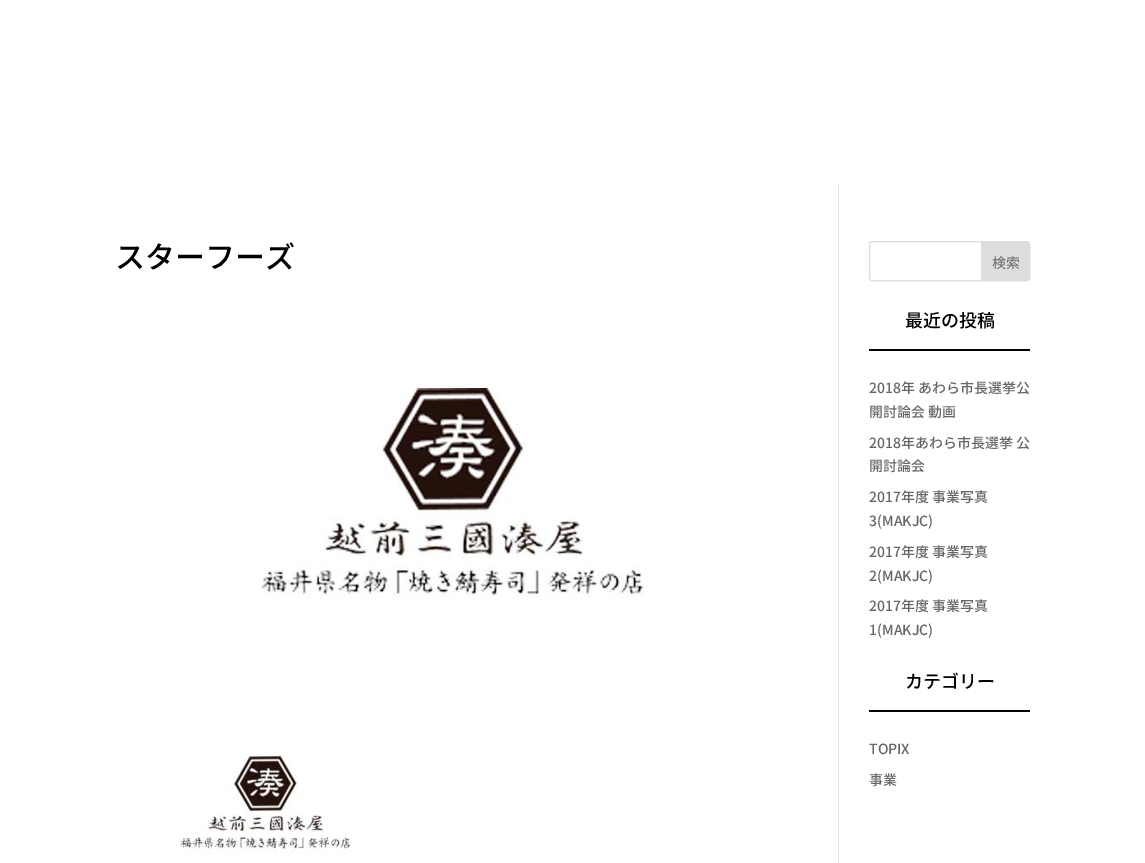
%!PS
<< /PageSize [1145 863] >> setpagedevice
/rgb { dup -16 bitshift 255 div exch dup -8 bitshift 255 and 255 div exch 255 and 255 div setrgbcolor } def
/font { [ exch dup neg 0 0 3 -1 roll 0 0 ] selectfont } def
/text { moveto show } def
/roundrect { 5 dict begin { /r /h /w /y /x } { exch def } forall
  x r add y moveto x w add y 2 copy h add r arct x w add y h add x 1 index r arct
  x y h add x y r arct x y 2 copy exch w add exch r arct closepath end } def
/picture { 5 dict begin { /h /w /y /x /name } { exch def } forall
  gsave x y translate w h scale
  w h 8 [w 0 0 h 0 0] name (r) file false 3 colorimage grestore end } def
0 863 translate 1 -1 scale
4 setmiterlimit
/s1 { /NotoSansJP-Medium 30 font 16#000000 rgb } def
/s2 { /NotoSansJP-Regular 14 font 16#666666 rgb } def
/s3 { /NotoSansJP-Medium 18 font 16#000000 rgb } def
/s4 { /NotoSansJP-Medium 14 font 16#666666 rgb } def
16#FFFFFF rgb
0 0 1145 863 rectfill
16#E2E2E2 rgb
838 183 1 680 rectfill
s1
(スターフーズ) 115 268 text
(pic1.raw) 261 383 386 216 picture
(pic2.raw) 179 750 175 104 picture
16#DDDDDD rgb
869.5 241.5 160 39 2.5 roundrect stroke
981.5 241.5 moveto 1027 241.5 lineto 1028.5 241.5 1029.5 242.5 1029.5 244 curveto 1029.5 278 lineto 1029.5 279.5 1028.5 280.5 1027 280.5 curveto 981.5 280.5 lineto closepath gsave fill grestore
stroke
s2
(検索) 992 268 text
16#000000 rgb
869 349 161 2 rectfill
s3
(最近の投稿) 905 327 text
s4
(2018年 あわら市長選挙公) 869 393 text
(開討論会 動画) 869 417 text
(2018年あわら市長選挙 公) 869 448 text
(開討論会) 869 471 text
(2017年度 事業写真) 869 502 text
(3\(MAKJC\)) 869 526 text
(2017年度 事業写真) 869 557 text
(2\(MAKJC\)) 869 581 text
(2017年度 事業写真) 869 611 text
(1\(MAKJC\)) 869 635 text
16#000000 rgb
869 710 161 2 rectfill
s3
(カテゴリー) 905 688 text
s4
(TOPIX) 869 754 text
(事業) 869 785 text
showpage
